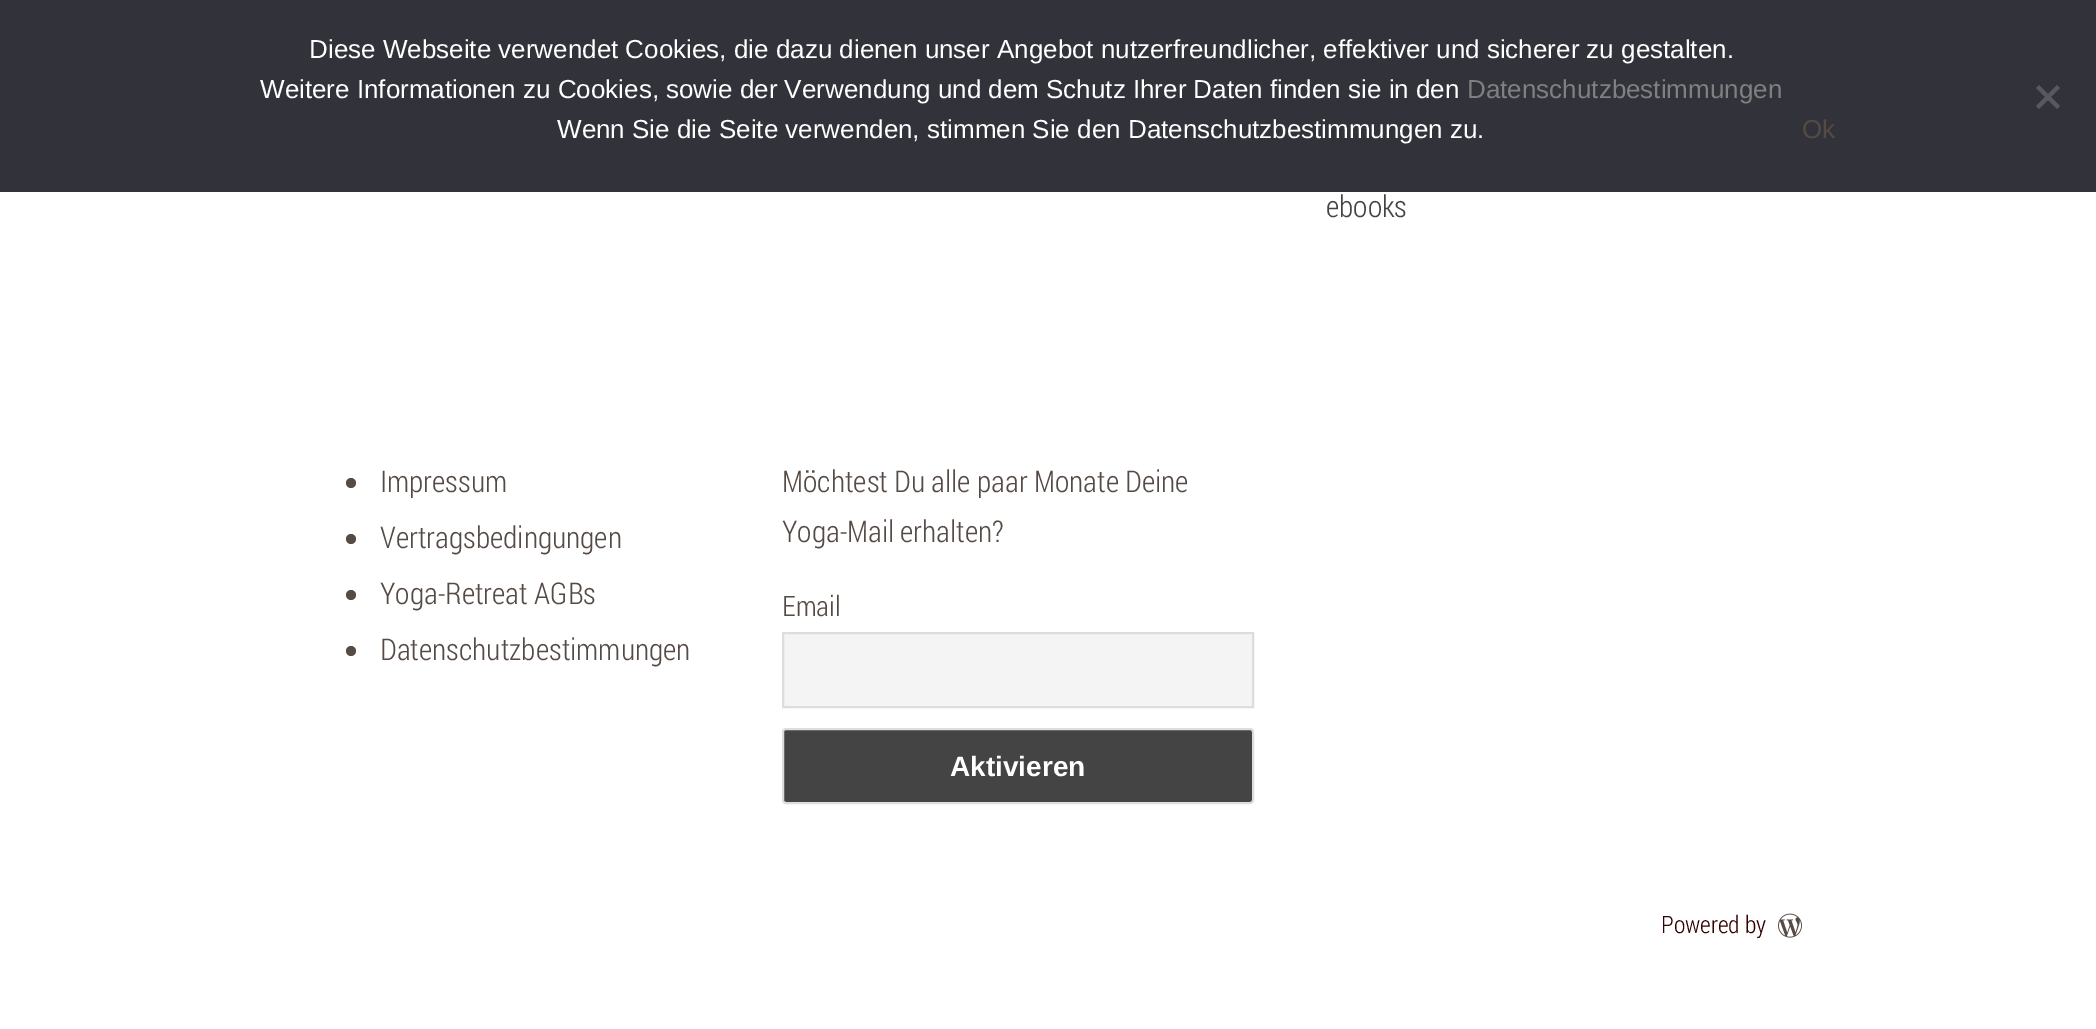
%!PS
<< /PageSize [2096 1029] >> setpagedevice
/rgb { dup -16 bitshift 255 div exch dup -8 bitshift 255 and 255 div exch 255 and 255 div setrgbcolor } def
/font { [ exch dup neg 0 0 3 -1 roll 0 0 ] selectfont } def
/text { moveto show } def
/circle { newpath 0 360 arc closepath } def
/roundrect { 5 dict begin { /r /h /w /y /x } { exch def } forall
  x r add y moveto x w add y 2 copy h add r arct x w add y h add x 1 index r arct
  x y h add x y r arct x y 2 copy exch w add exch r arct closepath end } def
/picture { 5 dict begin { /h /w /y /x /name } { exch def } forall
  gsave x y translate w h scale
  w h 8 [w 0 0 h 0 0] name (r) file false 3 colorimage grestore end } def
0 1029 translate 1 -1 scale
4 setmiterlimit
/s1 { /LiberationSans-Regular 26 font 16#FFFFFF rgb } def
/s2 { /LiberationSans-Regular 26 font 16#808080 rgb } def
/s3 { /LiberationSans-Regular 26 font 16#564A45 rgb } def
/s4 { /RobotoCondensed-Light 30 font 16#564A45 rgb } def
/s5 { /RobotoCondensed-Light 28 font 16#564A45 rgb } def
/s6 { /LiberationSans-Bold 28 font 16#FFFFFF rgb } def
/s7 { /RobotoCondensed-Light 24 font 16#330000 rgb } def
/s8 { /RobotoCondensed-Light 30 font 16#444444 rgb } def
16#FFFFFF rgb
0 0 2096 1029 rectfill
16#32323A rgb
0 0 2096 192 rectfill
s1
(Diese Webseite verwendet Cookies, die dazu dienen unser Angebot nutzerfreundlicher, effektiver und sicherer zu gestalten.) 309 58 text
(Weitere Informationen zu Cookies, sowie der Verwendung und dem Schutz Ihrer Daten finden sie in den) 260 98 text
s2
(Datenschutzbestimmungen) 1467 98 text
s1
(Wenn Sie die Seite verwenden, stimmen Sie den Datenschutzbestimmungen zu.) 557 138 text
16#59595D rgb
2057 85 moveto 2060 88 lineto 2039 109 lineto 2036 106 lineto closepath fill
2036 88 moveto 2039 85 lineto 2060 106 lineto 2057 109 lineto closepath fill
s3
(Ok) 1802 138 text
351 483 5 circle fill
s4
(Impressum) 380 492 text
351 539 5 circle fill
(Vertragsbedingungen) 380 548 text
351 595 5 circle fill
(Yoga-Retreat AGBs) 380 604 text
351 651 5 circle fill
(Datenschutzbestimmungen) 380 660 text
(Möchtest Du alle paar Monate Deine) 782 492 text
(Yoga-Mail erhalten?) 782 542 text
s5
(Email) 782 616 text
16#F4F4F4 rgb
783 633 moveto 1253 633 lineto 1253 707 lineto 783 707 lineto closepath gsave fill grestore
16#DDDDDD rgb
2 setlinewidth
stroke
16#444444 rgb
783 729 470 74 3 roundrect gsave fill grestore
16#DDDDDD rgb
stroke
s6
(Aktivieren) 950 776 text
s7
(Powered by) 1661 933 text
(pic1.raw) 1778 913 24 25 picture
s8
(ebooks) 1326 217 text
showpage
